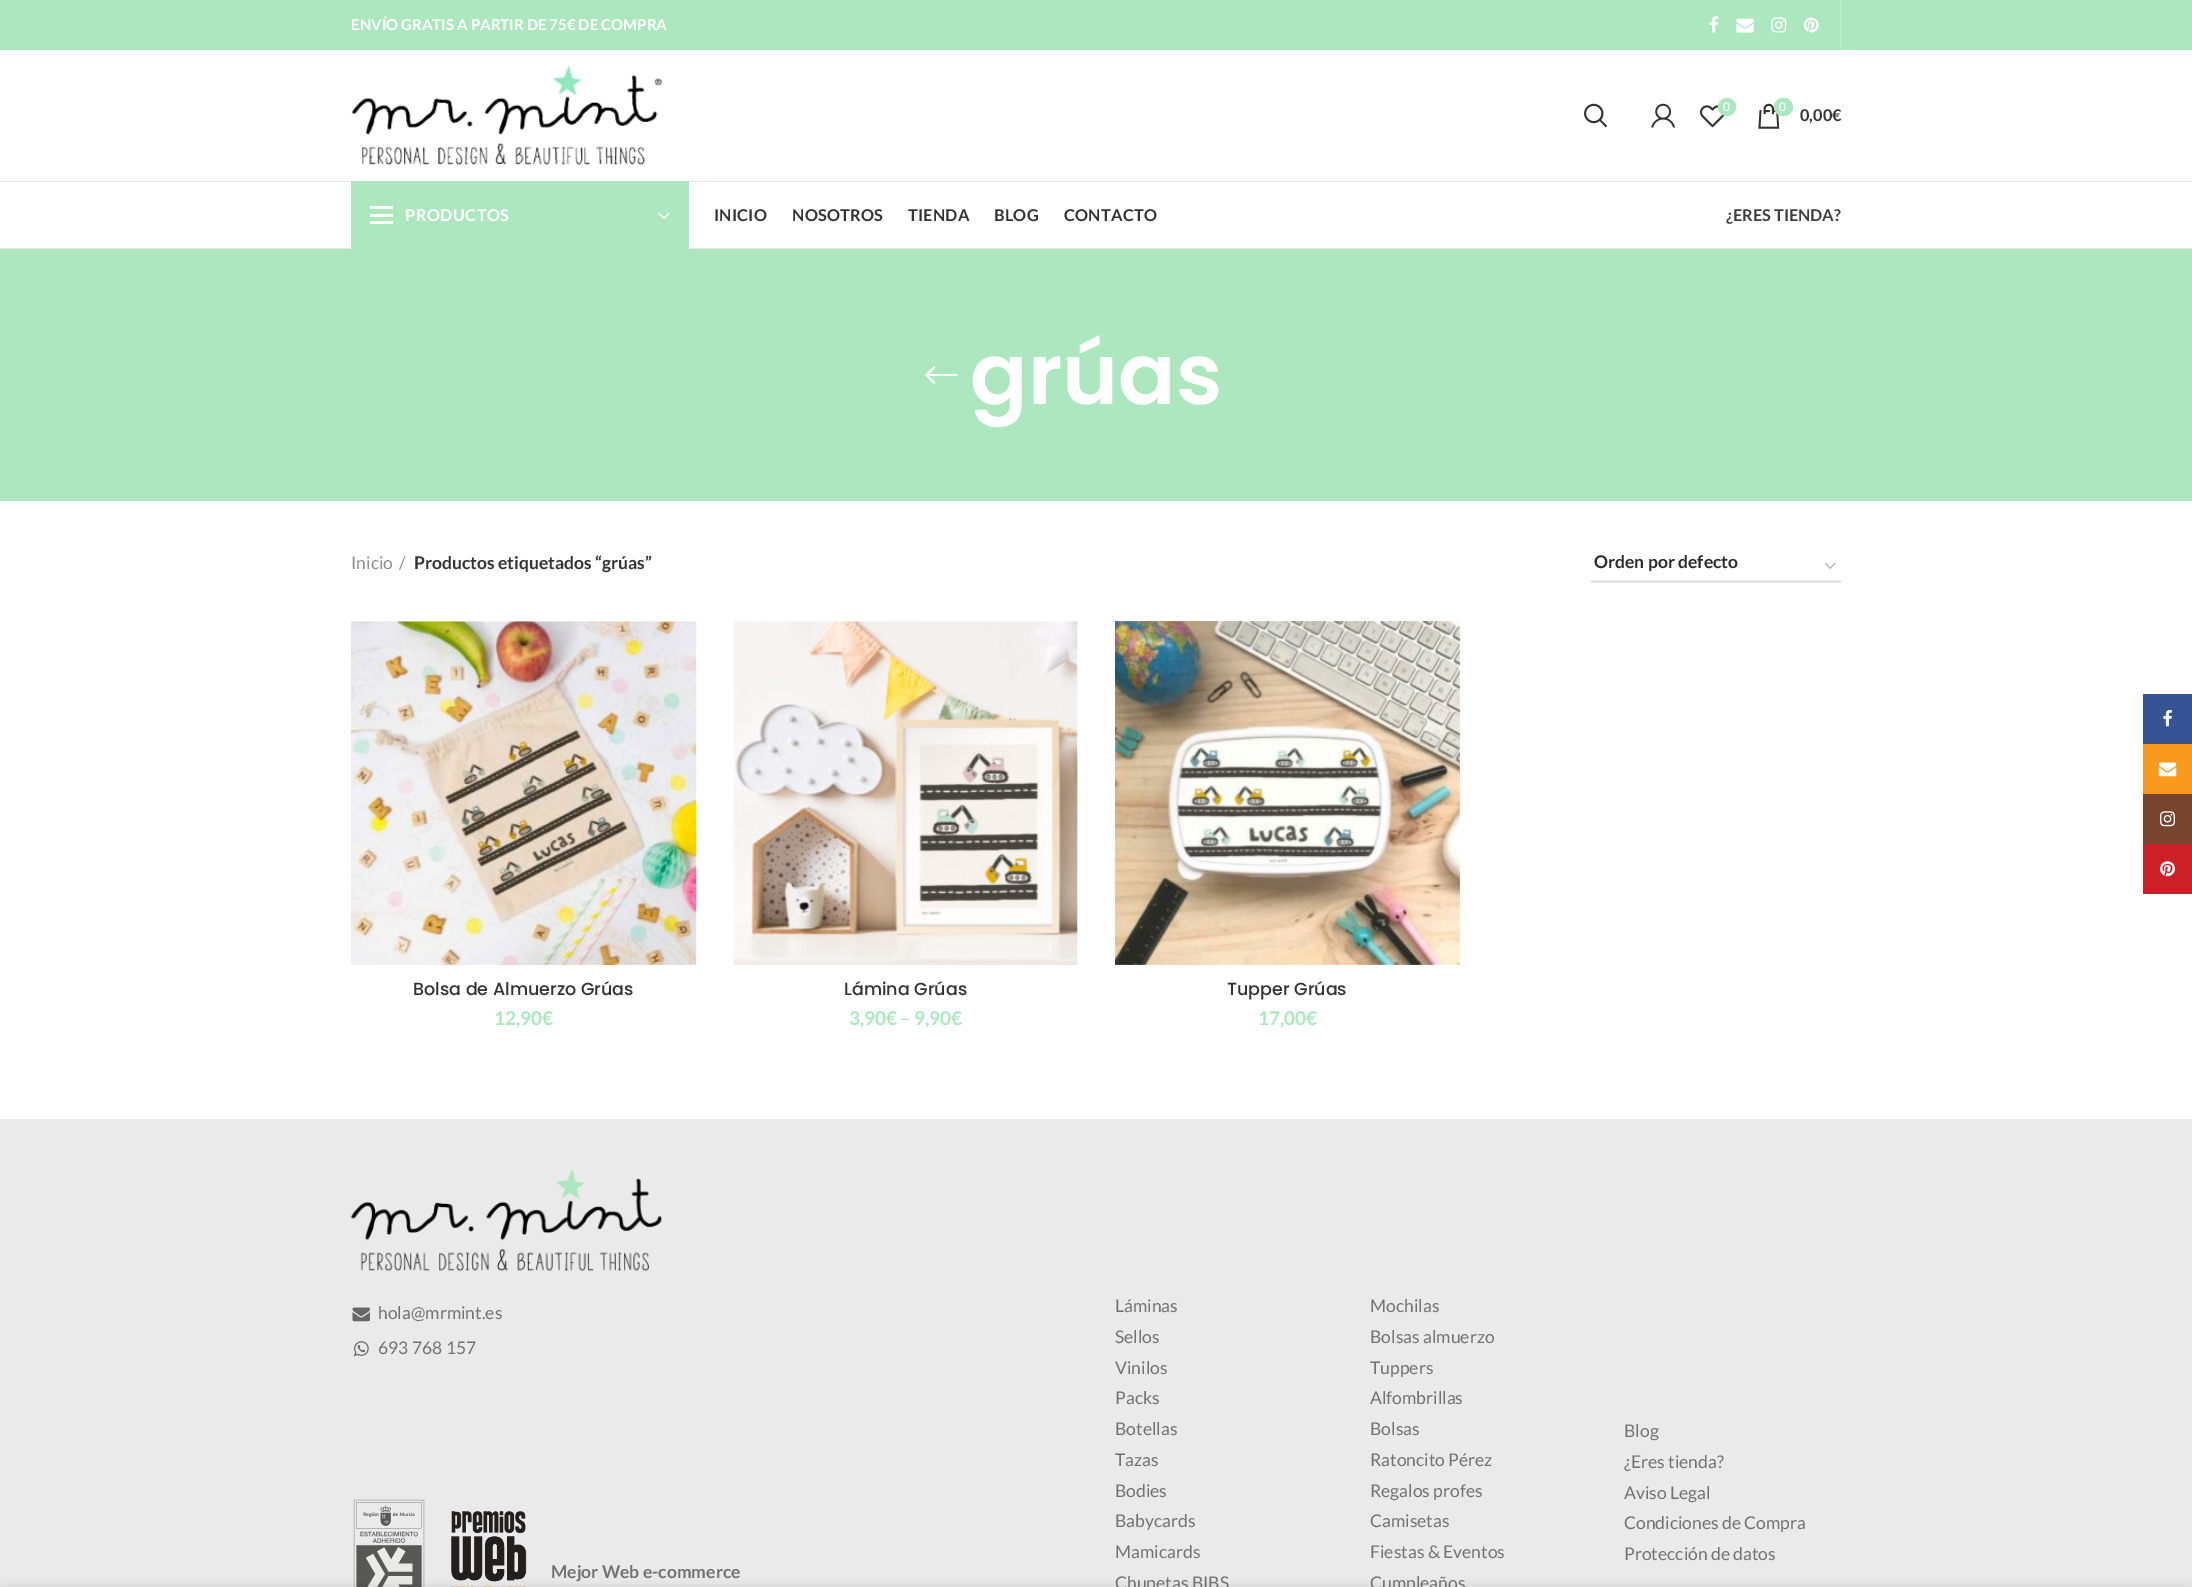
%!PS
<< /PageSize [2192 1587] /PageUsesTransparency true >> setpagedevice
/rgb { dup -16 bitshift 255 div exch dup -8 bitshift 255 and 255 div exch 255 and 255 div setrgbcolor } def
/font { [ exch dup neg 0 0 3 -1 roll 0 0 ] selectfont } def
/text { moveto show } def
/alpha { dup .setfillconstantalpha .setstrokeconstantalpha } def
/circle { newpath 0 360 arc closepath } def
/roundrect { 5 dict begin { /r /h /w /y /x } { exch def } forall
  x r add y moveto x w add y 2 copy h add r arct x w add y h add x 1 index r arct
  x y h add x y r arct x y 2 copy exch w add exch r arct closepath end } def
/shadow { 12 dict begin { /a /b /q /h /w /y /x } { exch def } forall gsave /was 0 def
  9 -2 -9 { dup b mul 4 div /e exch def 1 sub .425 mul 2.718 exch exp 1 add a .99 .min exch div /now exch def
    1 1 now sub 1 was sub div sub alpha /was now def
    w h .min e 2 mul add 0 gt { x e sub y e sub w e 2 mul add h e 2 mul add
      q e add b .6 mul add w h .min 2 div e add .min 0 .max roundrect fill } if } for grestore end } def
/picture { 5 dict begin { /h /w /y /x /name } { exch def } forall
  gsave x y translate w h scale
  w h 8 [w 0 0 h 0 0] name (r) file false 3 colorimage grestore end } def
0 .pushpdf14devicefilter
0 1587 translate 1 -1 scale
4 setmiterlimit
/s1 { /Lato-Bold 15 font 16#FFFFFF rgb } def
/s2 { /Lato-Regular 12 font 16#FFFFFF rgb } def
/s3 { /Lato-Bold 16.25 font 16#333333 rgb } def
/s4 { /Lato-Bold 16.25 font 16#3F3F3F rgb } def
/s5 { /Poppins-SemiBold 85 font 16#FFFFFF rgb } def
/s6 { /Lato-Regular 17.5 font 16#8E8E8E rgb } def
/s7 { /Lato-Bold 17.5 font 16#333333 rgb } def
/s8 { /Lato-Bold 17.5 font 16#2D2A2A rgb } def
/s9 { /Poppins-Medium 17.5 font 16#333333 rgb } def
/s10 { /Lato-Bold 19 font 16#ADE7BF rgb } def
/s11 { /Lato-Regular 19 font 16#ADE7BF rgb } def
/s12 { /Lato-Regular 17.5 font 16#727272 rgb } def
/s13 { /Lato-Bold 17.5 font 16#727272 rgb } def
16#FFFFFF rgb
0 0 2192 1587 rectfill
16#ADE7BF rgb
0 0 2192 50 rectfill
s1
(ENVÍO GRATIS A PARTIR DE 75€ DE COMPRA) 351 30 text
(pic1.raw) 1709 16 10 17 picture
(pic2.raw) 1736 18 18 15 picture
(pic3.raw) 1771 17 16 16 picture
(pic4.raw) 1803 17 16 16 picture
16#C2EDCF rgb
1840 0 1 50 rectfill
16#E8E8E8 rgb
0 181 2192 1 rectfill
(pic5.raw) 351 65 312 100 picture
(pic6.raw) 1584 103 24 25 picture
(pic7.raw) 1651 103 24 25 picture
(pic8.raw) 1700 105 25 23 picture
16#ADE7BF rgb
1727 107 9 circle fill
s2
(0) 1723 111 text
(pic9.raw) 1758 103 22 26 picture
16#ADE7BF rgb
1774 98 19 18 9 roundrect fill
s2
(0) 1779 111 text
s3
(0,00€) 1800 121 text
16#E8E8E8 rgb
0 248 2192 1 rectfill
16#ADE7BF rgb
351 181 338 68 rectfill
16#FFFFFF rgb
370 214 23 3 rectfill
370 206 23 3 rectfill
370 221 23 3 rectfill
405 221 moveto 0.5 0 (PRODUCTOS) ashow
(pic10.raw) 658 212 12 7 picture
16#333333 rgb
714 221 moveto 0.25 0 (INICIO) ashow
792 221 moveto 0.25 0 (NOSOTROS) ashow
908 221 moveto 0.25 0 (TIENDA) ashow
994 221 moveto 0.25 0 (BLOG) ashow
1064 221 moveto 0.25 0 (CONTACTO) ashow
s4
(¿ERES TIENDA?) 1726 221 text
16#ADE7BF rgb
0 249 2192 252 rectfill
16#FFFFFF rgb
957.5 374 moveto 929 374 lineto 935.5 367.5 lineto 934 366 lineto 925 375 lineto 934 384 lineto 935.5 382.5 lineto 929 376 lineto 957.5 376 lineto closepath fill
s5
(grúas) 970 404 text
s6
(Inicio) 351 569 text
(/) 399 569 text
s7
(Productos etiquetados “grúas”) 414 569 text
16#E6E6E6 rgb
1591 580 250 3 rectfill
s8
(Orden por defecto) 1594 568 text
(pic11.raw) 1824 562 12 7 picture
(pic12.raw) 351 621 346 344 picture
s9
(Bolsa de Almuerzo Grúas) 413 995 text
s10
(12,90€) 494 1025 text
(pic13.raw) 733 621 345 344 picture
s9
(Lámina Grúas) 844 995 text
s10
(3,90€) 849 1025 text
s11
(–) 900 1025 text
s10
(9,90€) 914 1025 text
(pic14.raw) 1115 621 345 344 picture
s9
(Tupper Grúas) 1227 995 text
s10
(17,00€) 1258 1025 text
16#EAEAEA rgb
0 1119 2192 468 rectfill
(pic15.raw) 351 1169 311 103 picture
(pic16.raw) 352 1307 18 15 picture
s12
(hola@mrmint.es) 378 1319 text
(pic17.raw) 353 1341 16 16 picture
(693 768 157) 378 1354 text
(pic18.raw) 353 1499 72 88 picture
(pic19.raw) 451 1511 76 76 picture
s13
(Mejor Web e-commerce) 551 1578 text
s12
(Láminas) 1115 1312 text
(Sellos) 1115 1343 text
(Vinilos) 1115 1374 text
(Packs) 1115 1404 text
(Botellas) 1115 1435 text
(Tazas) 1115 1466 text
(Bodies) 1115 1497 text
(Babycards) 1115 1527 text
(Mamicards) 1115 1558 text
(Chupetas BIBS) 1115 1589 text
(Mochilas) 1370 1312 text
(Bolsas almuerzo) 1370 1343 text
(Tuppers) 1370 1374 text
(Alfombrillas) 1370 1404 text
(Bolsas) 1370 1435 text
(Ratoncito Pérez) 1370 1466 text
(Regalos profes) 1370 1497 text
(Camisetas) 1370 1527 text
(Fiestas & Eventos) 1370 1558 text
(Cumpleaños) 1370 1589 text
(Blog) 1624 1437 text
(¿Eres tienda?) 1624 1468 text
(Aviso Legal) 1624 1499 text
(Condiciones de Compra) 1624 1529 text
(Protección de datos) 1624 1560 text
16#365493 rgb
2143 694 49 50 rectfill
(pic20.raw) 2163 710 9 17 picture
16#F89A1E rgb
2143 744 49 50 rectfill
(pic21.raw) 2158 762 19 15 picture
16#774430 rgb
2143 794 49 50 rectfill
(pic22.raw) 2160 811 15 16 picture
16#CB2027 rgb
2143 844 49 50 rectfill
(pic23.raw) 2160 861 15 16 picture
16#000000 rgb
0 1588 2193 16 0 5.5 0.14 shadow
.poppdf14devicefilter showpage
